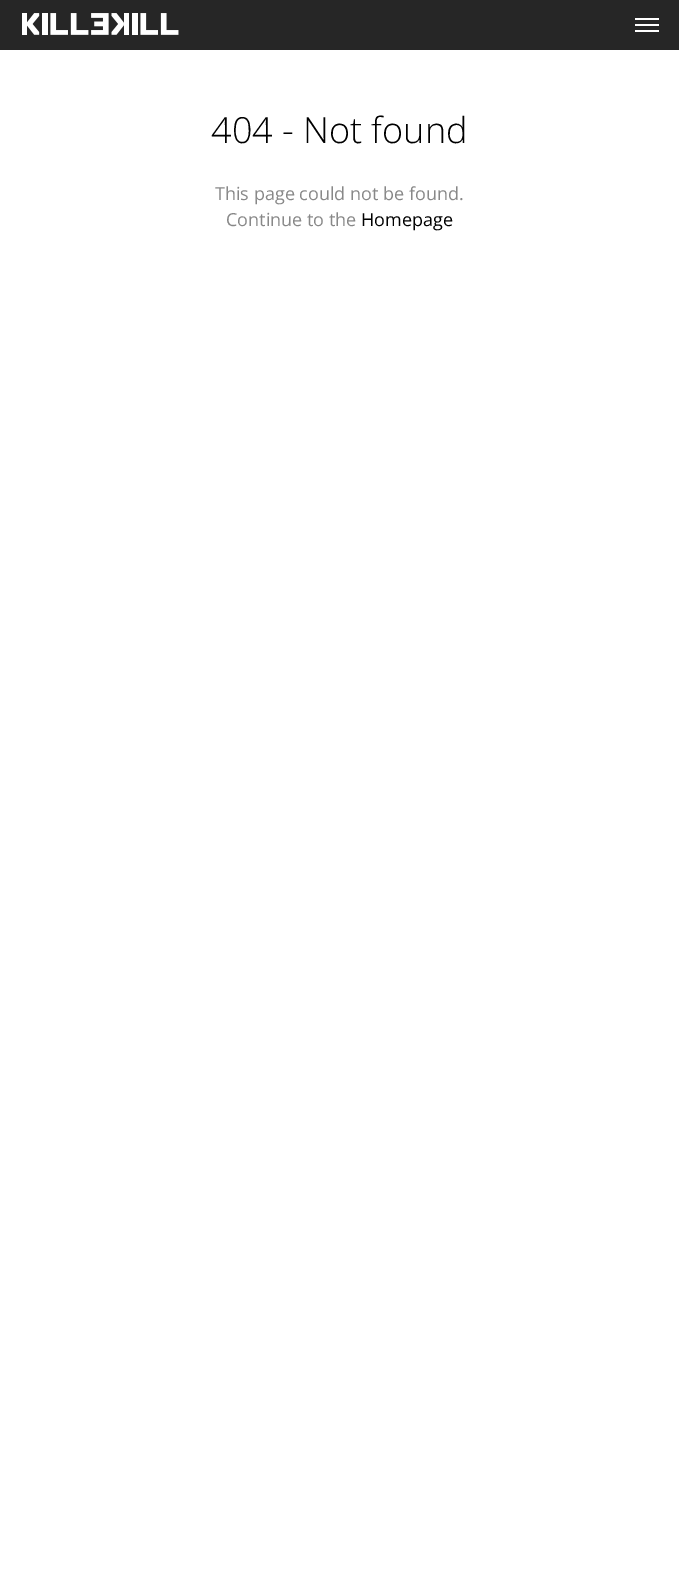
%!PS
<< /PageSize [679 1585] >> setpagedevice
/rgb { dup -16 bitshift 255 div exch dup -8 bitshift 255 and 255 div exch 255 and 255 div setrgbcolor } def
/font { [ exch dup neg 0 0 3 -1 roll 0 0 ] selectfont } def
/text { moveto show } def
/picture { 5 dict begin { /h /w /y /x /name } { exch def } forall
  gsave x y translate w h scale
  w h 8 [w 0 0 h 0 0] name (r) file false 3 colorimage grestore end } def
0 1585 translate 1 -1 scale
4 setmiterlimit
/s1 { /OpenSans-Light 36 font 16#000000 rgb } def
/s2 { /OpenSans-Regular 18 font 16#888888 rgb } def
/s3 { /OpenSans-Regular 18 font 16#000000 rgb } def
16#FFFFFF rgb
0 0 679 1585 rectfill
16#262626 rgb
0 0 679 50 rectfill
(pic1.raw) 22 13 157 22 picture
16#FFFFFF rgb
635 24 24 2 rectfill
635 18 24 2 rectfill
635 30 24 2 rectfill
s1
(404 - Not found) 211 143 text
s2
(This page could not be found.) 215 200 text
(Continue to the) 226 226 text
s3
(Homepage) 361 226 text
showpage
